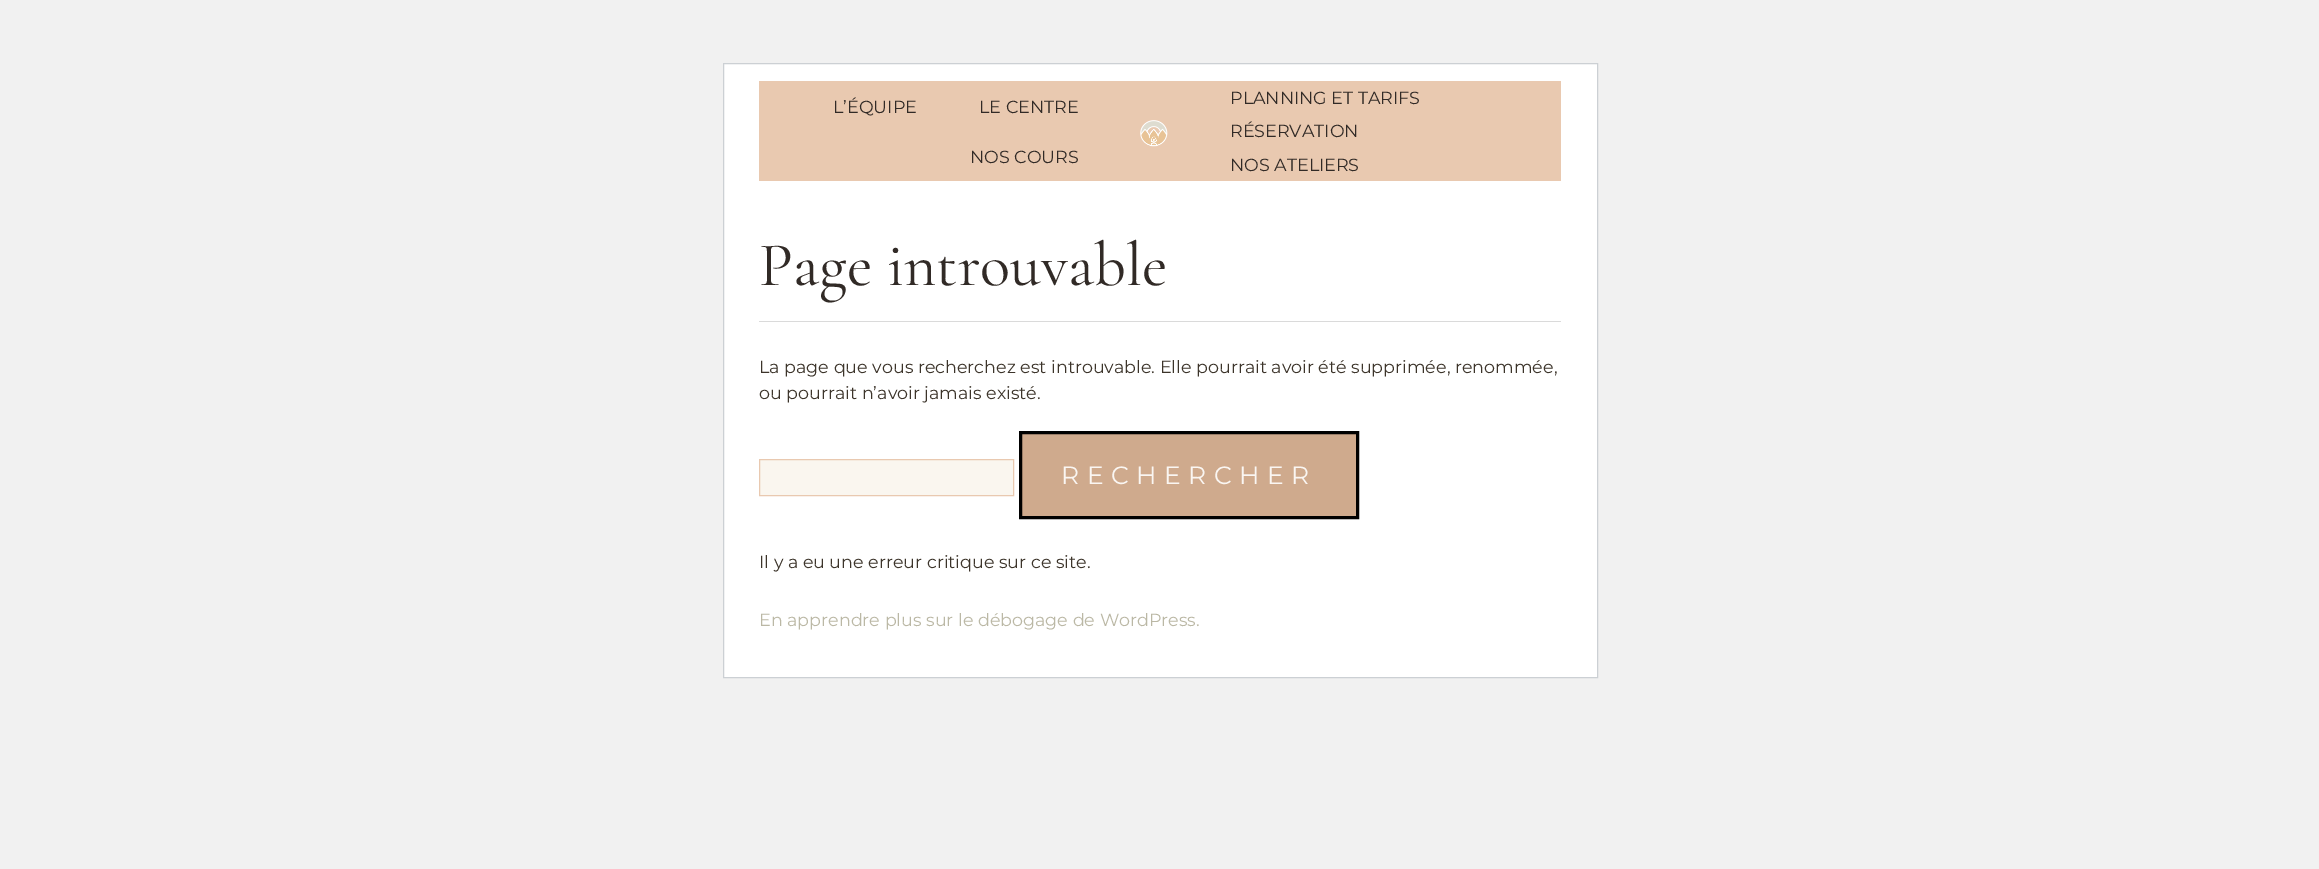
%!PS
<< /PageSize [2319 869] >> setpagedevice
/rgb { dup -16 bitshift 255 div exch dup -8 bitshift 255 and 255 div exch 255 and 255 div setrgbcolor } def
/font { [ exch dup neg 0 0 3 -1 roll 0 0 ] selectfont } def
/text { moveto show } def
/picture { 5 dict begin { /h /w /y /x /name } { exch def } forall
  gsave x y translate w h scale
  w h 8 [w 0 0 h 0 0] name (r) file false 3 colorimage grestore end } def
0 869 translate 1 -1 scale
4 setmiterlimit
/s1 { /Montserrat-Regular 17.5 font 16#312A26 rgb } def
/s2 { /CormorantGaramond-Regular 62.5 font 16#312A26 rgb } def
/s3 { /Montserrat-Regular 17.5 font 16#3C342A rgb } def
/s4 { /Montserrat-Regular 17.5 font 16#BBB8A5 rgb } def
16#F1F1F1 rgb
0 0 2319 869 rectfill
16#FFFFFF rgb
723.5 63.5 moveto 1597.5 63.5 lineto 1597.5 677.5 lineto 723.5 677.5 lineto closepath gsave fill grestore
16#CCD0D4 rgb
stroke
16#E9C9B0 rgb
759 81 802 100 rectfill
s1
(L’ÉQUIPE) 833 113 text
(LE CENTRE) 979 113 text
(NOS COURS) 970 163 text
(pic1.raw) 1140 120 28 27 picture
(PLANNING ET TARIFS) 1230 104 text
(RÉSERVATION) 1230 137 text
(NOS ATELIERS) 1230 171 text
16#DADADA rgb
759 321 802 1 rectfill
s2
(Page introuvable) 759 285 text
s3
(La page que vous recherchez est introuvable. Elle pourrait avoir été supprimée, renommée,) 759 373 text
(ou pourrait n’avoir jamais existé.) 759 399 text
16#FAF6EF rgb
759.5 459.5 moveto 1013.5 459.5 lineto 1013.5 495.5 lineto 759.5 495.5 lineto closepath gsave fill grestore
16#E9C9B0 rgb
stroke
16#CFAA8D rgb
1020.5 432.5 moveto 1357.5 432.5 lineto 1357.5 517.5 lineto 1020.5 517.5 lineto closepath gsave fill grestore
16#000000 rgb
3 setlinewidth
stroke
/Montserrat-Regular 25 font
16#FAF6F2 rgb
1061 484 moveto 7.5 0 (RECHERCHER) ashow
s3
(Il y a eu une erreur critique sur ce site.) 759 568 text
s4
(En apprendre plus sur le débogage de WordPress.) 759 626 text
showpage
